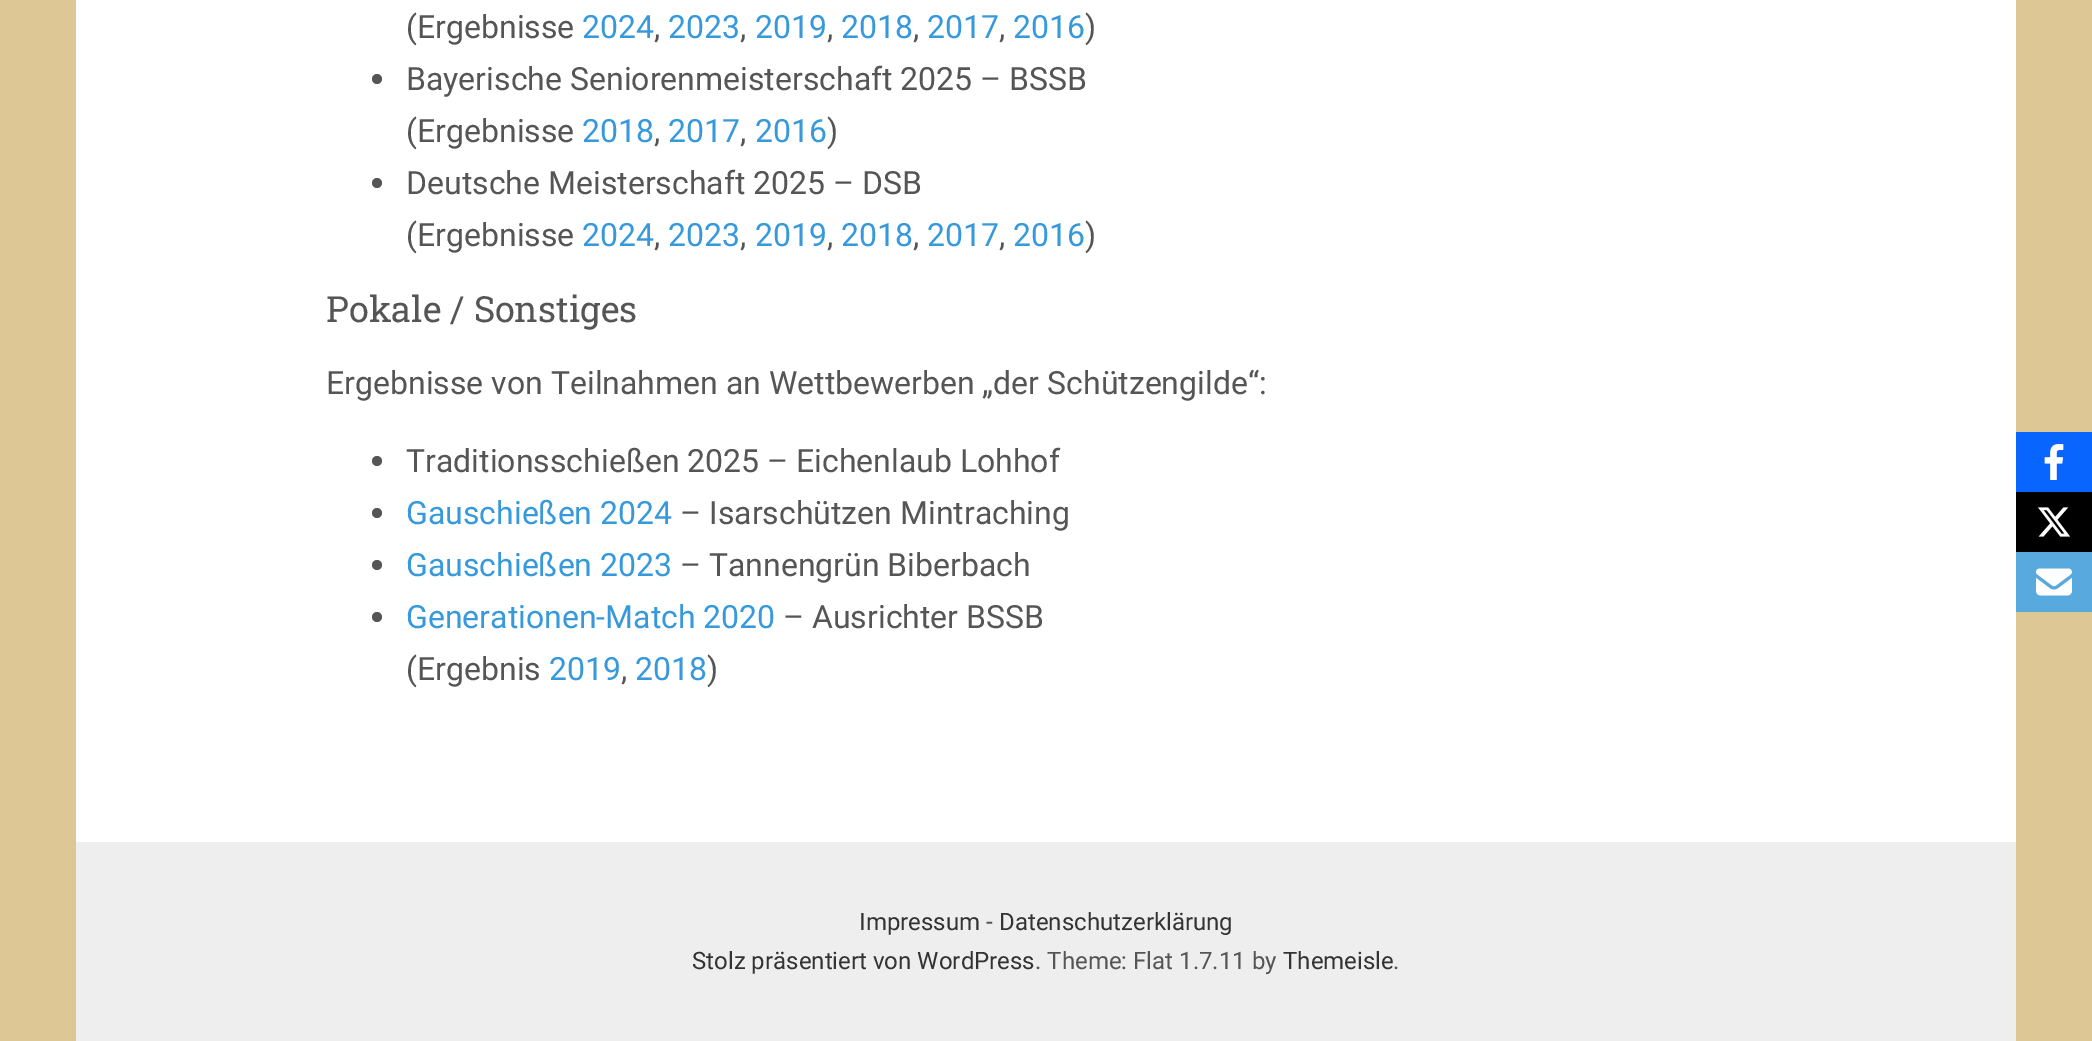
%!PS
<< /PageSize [2092 1041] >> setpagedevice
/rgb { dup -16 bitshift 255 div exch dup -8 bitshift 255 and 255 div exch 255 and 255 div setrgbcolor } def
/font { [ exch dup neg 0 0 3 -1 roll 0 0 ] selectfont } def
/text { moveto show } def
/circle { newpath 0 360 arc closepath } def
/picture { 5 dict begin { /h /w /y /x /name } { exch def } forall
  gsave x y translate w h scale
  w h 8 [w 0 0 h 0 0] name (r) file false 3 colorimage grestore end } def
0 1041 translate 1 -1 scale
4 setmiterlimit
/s1 { /Roboto-Regular 32 font 16#555555 rgb } def
/s2 { /Roboto-Regular 32 font 16#3699DC rgb } def
/s3 { /RobotoSlab-Regular 36 font 16#555555 rgb } def
/s4 { /Roboto-Regular 24 font 16#333333 rgb } def
/s5 { /Roboto-Regular 24 font 16#555555 rgb } def
16#DDC794 rgb
0 0 2092 1041 rectfill
16#FFFFFF rgb
76 0 1940 842 rectfill
s1
(\(Ergebnisse) 406 38 text
s2
(2024) 582 38 text
s1
(,) 654 38 text
s2
(2023) 668 38 text
s1
(,) 740 38 text
s2
(2019) 755 38 text
s1
(,) 827 38 text
s2
(2018) 841 38 text
s1
(,) 913 38 text
s2
(2017) 927 38 text
s1
(,) 999 38 text
s2
(2016) 1013 38 text
s1
(\)) 1085 38 text
377 79 5 circle fill
(Bayerische Seniorenmeisterschaft 2025 – BSSB) 406 90 text
(\(Ergebnisse) 406 142 text
s2
(2018) 582 142 text
s1
(,) 654 142 text
s2
(2017) 668 142 text
s1
(,) 740 142 text
s2
(2016) 755 142 text
s1
(\)) 827 142 text
377 183 5 circle fill
(Deutsche Meisterschaft 2025 – DSB) 406 194 text
(\(Ergebnisse) 406 246 text
s2
(2024) 582 246 text
s1
(,) 654 246 text
s2
(2023) 668 246 text
s1
(,) 740 246 text
s2
(2019) 755 246 text
s1
(,) 827 246 text
s2
(2018) 841 246 text
s1
(,) 913 246 text
s2
(2017) 927 246 text
s1
(,) 999 246 text
s2
(2016) 1013 246 text
s1
(\)) 1085 246 text
s3
(Pokale / Sonstiges) 326 322 text
s1
(Ergebnisse von Teilnahmen an Wettbewerben „der Schützengilde“:) 326 394 text
377 461 5 circle fill
(Traditionsschießen 2025 – Eichenlaub Lohhof) 406 472 text
377 513 5 circle fill
s2
(Gauschießen 2024) 406 524 text
s1
(– Isarschützen Mintraching) 680 524 text
377 565 5 circle fill
s2
(Gauschießen 2023) 406 576 text
s1
(– Tannengrün Biberbach) 680 576 text
377 617 5 circle fill
s2
(Generationen-Match 2020) 406 628 text
s1
(– Ausrichter BSSB) 783 628 text
(\(Ergebnis) 406 680 text
s2
(2019) 549 680 text
s1
(,) 621 680 text
s2
(2018) 635 680 text
s1
(\)) 707 680 text
16#EEEEEE rgb
76 842 1940 199 rectfill
s4
(Impressum) 859 930 text
s5
(-) 986 930 text
s4
(Datenschutzerklärung) 999 930 text
(Stolz präsentiert von WordPress) 692 969 text
s5
(. Theme: Flat 1.7.11 by) 1035 969 text
s4
(Themeisle) 1283 969 text
s5
(.) 1393 969 text
16#0866FF rgb
2016 432 76 60 rectfill
(pic1.raw) 2044 444 20 36 picture
16#000000 rgb
2016 492 76 60 rectfill
(pic2.raw) 2038 507 33 30 picture
16#58A9DE rgb
2016 552 76 60 rectfill
(pic3.raw) 2036 568 36 28 picture
showpage
